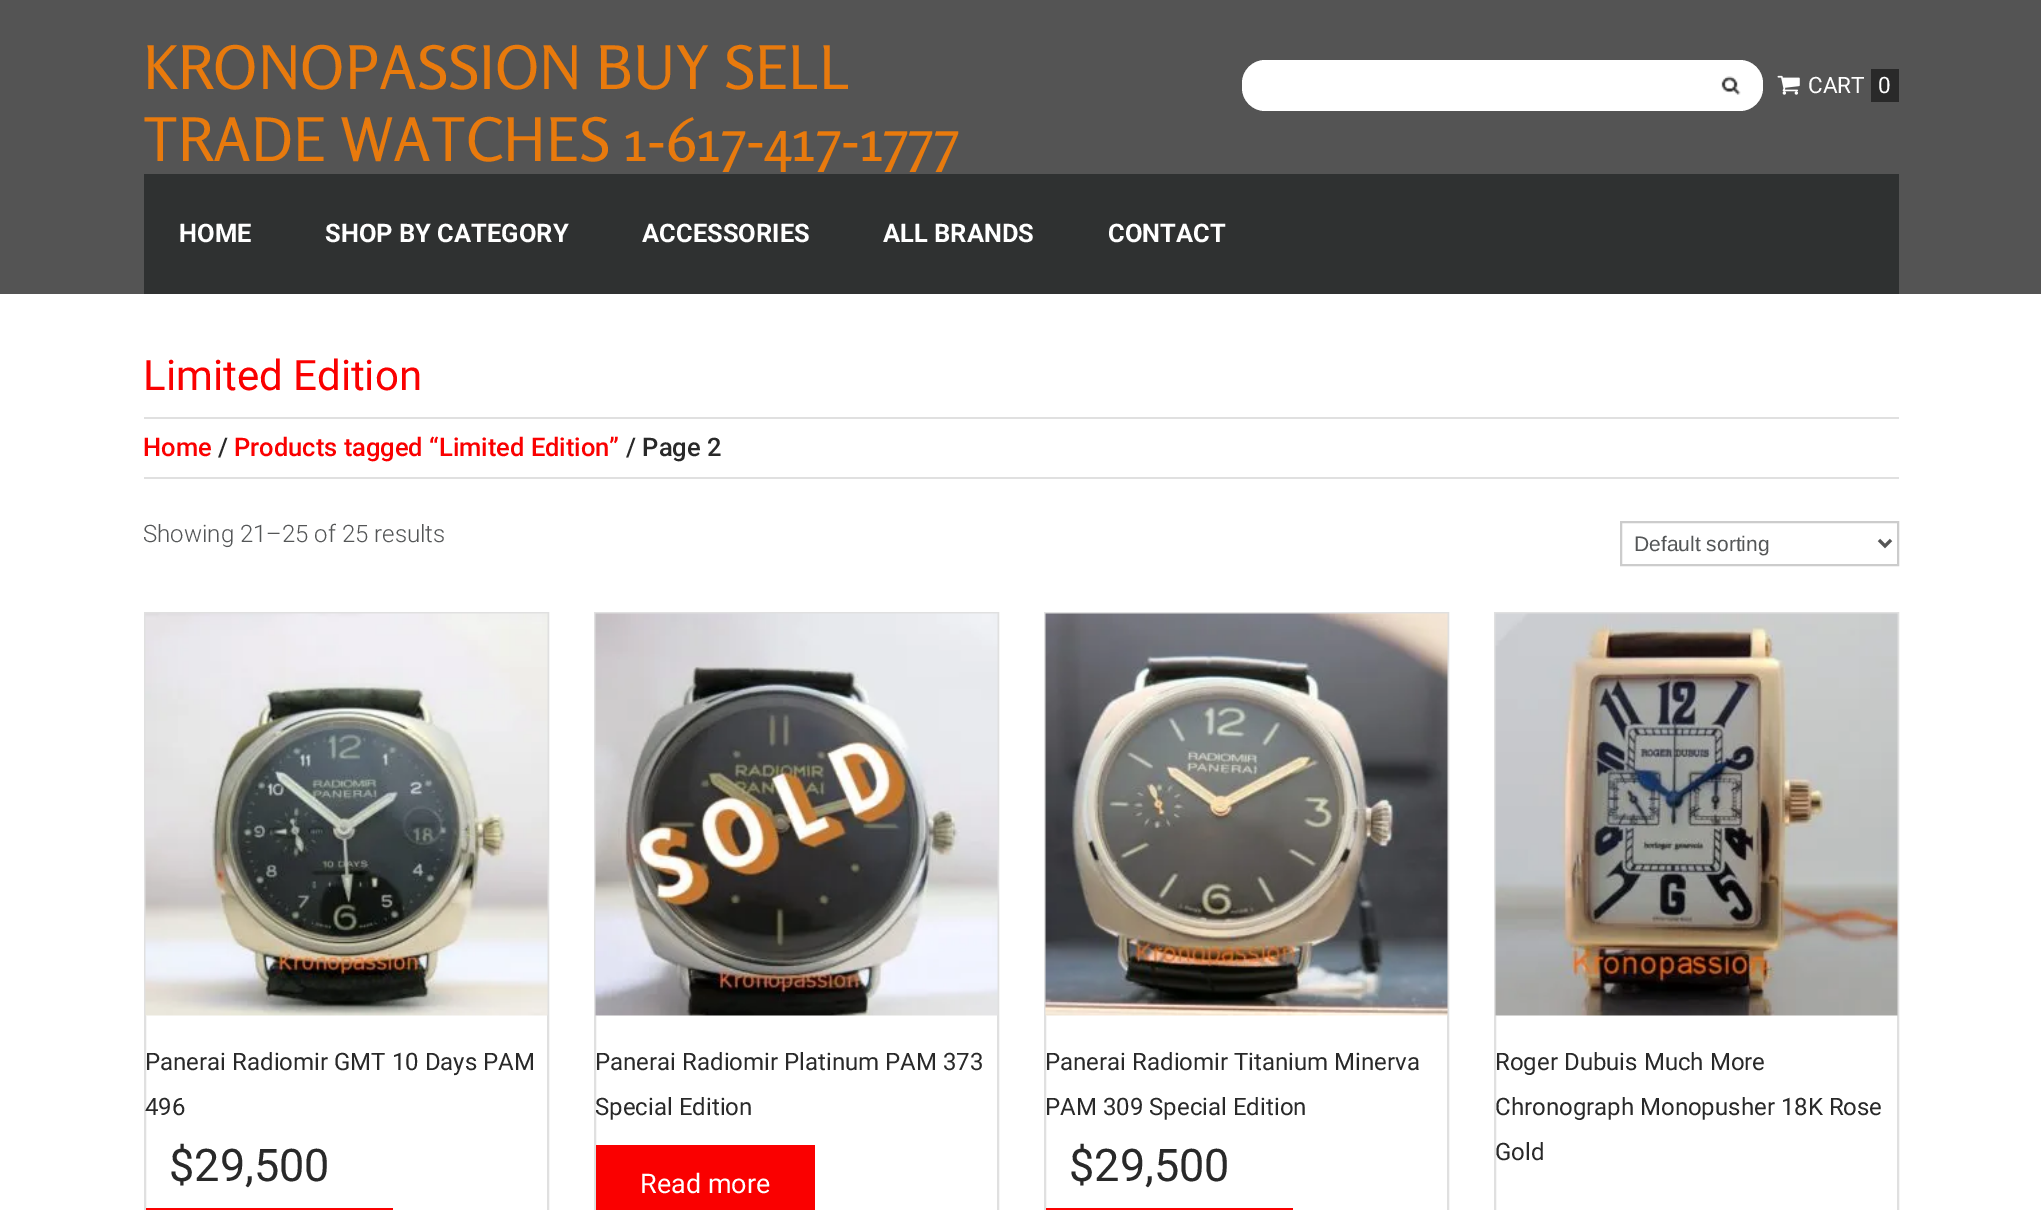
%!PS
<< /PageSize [2041 1210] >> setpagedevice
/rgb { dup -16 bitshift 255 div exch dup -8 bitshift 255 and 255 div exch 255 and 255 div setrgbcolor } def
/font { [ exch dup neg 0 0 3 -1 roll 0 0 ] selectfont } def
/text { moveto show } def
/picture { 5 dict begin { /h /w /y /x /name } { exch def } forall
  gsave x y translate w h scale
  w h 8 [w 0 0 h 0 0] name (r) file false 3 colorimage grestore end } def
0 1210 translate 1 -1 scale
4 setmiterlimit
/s1 { /Rosario-Regular 60 font 16#E87A0D rgb } def
/s2 { /Roboto-Regular 22.5 font 16#FFFFFF rgb } def
/s3 { /Roboto-Bold 25.5 font 16#FFFFFF rgb } def
/s4 { /Roboto-Regular 42 font 16#FA0000 rgb } def
/s5 { /Roboto-Medium 25.5 font 16#FA0000 rgb } def
/s6 { /Roboto-Medium 25.5 font 16#292929 rgb } def
/s7 { /Roboto-Light 24 font 16#545657 rgb } def
/s8 { /LiberationSans-Regular 21 font 16#545657 rgb } def
/s9 { /Roboto-Regular 24 font 16#292929 rgb } def
/s10 { /Roboto-Regular 45 font 16#292929 rgb } def
/s11 { /Roboto-Regular 27 font 16#FFFFFF rgb } def
16#FFFFFF rgb
0 0 2041 1210 rectfill
16#545454 rgb
0 0 2041 294 rectfill
s1
(KRONOPASSION BUY SELL) 143 89 text
(TRADE WATCHES 1-617-417-1777) 143 161 text
16#FFFFFF rgb
1265 60 moveto 1700 60 lineto 1700 111 lineto 1265 111 lineto 1252.5 111 1242 100.5 1242 88 curveto 1242 83 lineto 1242 70.5 1252.5 60 1265 60 curveto closepath fill
1700 60 moveto 1740 60 lineto 1752.5 60 1763 70.5 1763 83 curveto 1763 88 lineto 1763 100.5 1752.5 111 1740 111 curveto 1700 111 lineto closepath fill
(pic1.raw) 1721 76 20 19 picture
(pic2.raw) 1777 75 23 20 picture
s2
(CART) 1808 93 text
16#292929 rgb
1871 69 28 33 rectfill
s2
(0) 1878 93 text
16#2F3131 rgb
144 174 1755 120 rectfill
s3
(HOME) 179 242 text
(SHOP BY CATEGORY) 325 242 text
(ACCESSORIES) 642 242 text
(ALL BRANDS) 883 242 text
(CONTACT) 1108 242 text
s4
(Limited Edition) 143 390 text
16#E0E0E0 rgb
144 417 1755 2 rectfill
144 477 1755 2 rectfill
s5
(Home) 143 456 text
s6
(/) 218 456 text
s5
(Products tagged “Limited Edition”) 234 456 text
s6
(/ Page 2) 626 456 text
s7
(Showing 21–25 of 25 results) 143 542 text
16#CCCCCC rgb
2 setlinewidth
1621 522 277 43 rectstroke
16#555555 rgb
3 setlinewidth
1879 540 moveto 1885 546 lineto 1891 540 lineto stroke
s8
(Default sorting) 1634 551 text
16#E0E0E0 rgb
2 setlinewidth
145 613 403 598 rectstroke
(pic3.raw) 145 613 403 403 picture
s9
(Panerai Radiomir GMT 10 Days PAM) 145 1070 text
(496) 145 1115 text
s10
($29,500) 169 1181 text
16#FA0000 rgb
146 1208 247 2 rectfill
16#E0E0E0 rgb
595 613 403 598 rectstroke
(pic4.raw) 595 613 403 403 picture
s9
(Panerai Radiomir Platinum PAM 373) 595 1070 text
(Special Edition) 595 1115 text
16#FA0000 rgb
596 1145 219 65 rectfill
s11
(Read more) 640 1193 text
16#E0E0E0 rgb
1045 613 403 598 rectstroke
(pic5.raw) 1045 613 403 403 picture
s9
(Panerai Radiomir Titanium Minerva) 1045 1070 text
(PAM 309 Special Edition) 1045 1115 text
s10
($29,500) 1069 1181 text
16#FA0000 rgb
1046 1208 247 2 rectfill
16#E0E0E0 rgb
1495 613 403 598 rectstroke
(pic6.raw) 1495 613 403 403 picture
s9
(Roger Dubuis Much More) 1495 1070 text
(Chronograph Monopusher 18K Rose) 1495 1115 text
(Gold) 1495 1160 text
showpage
